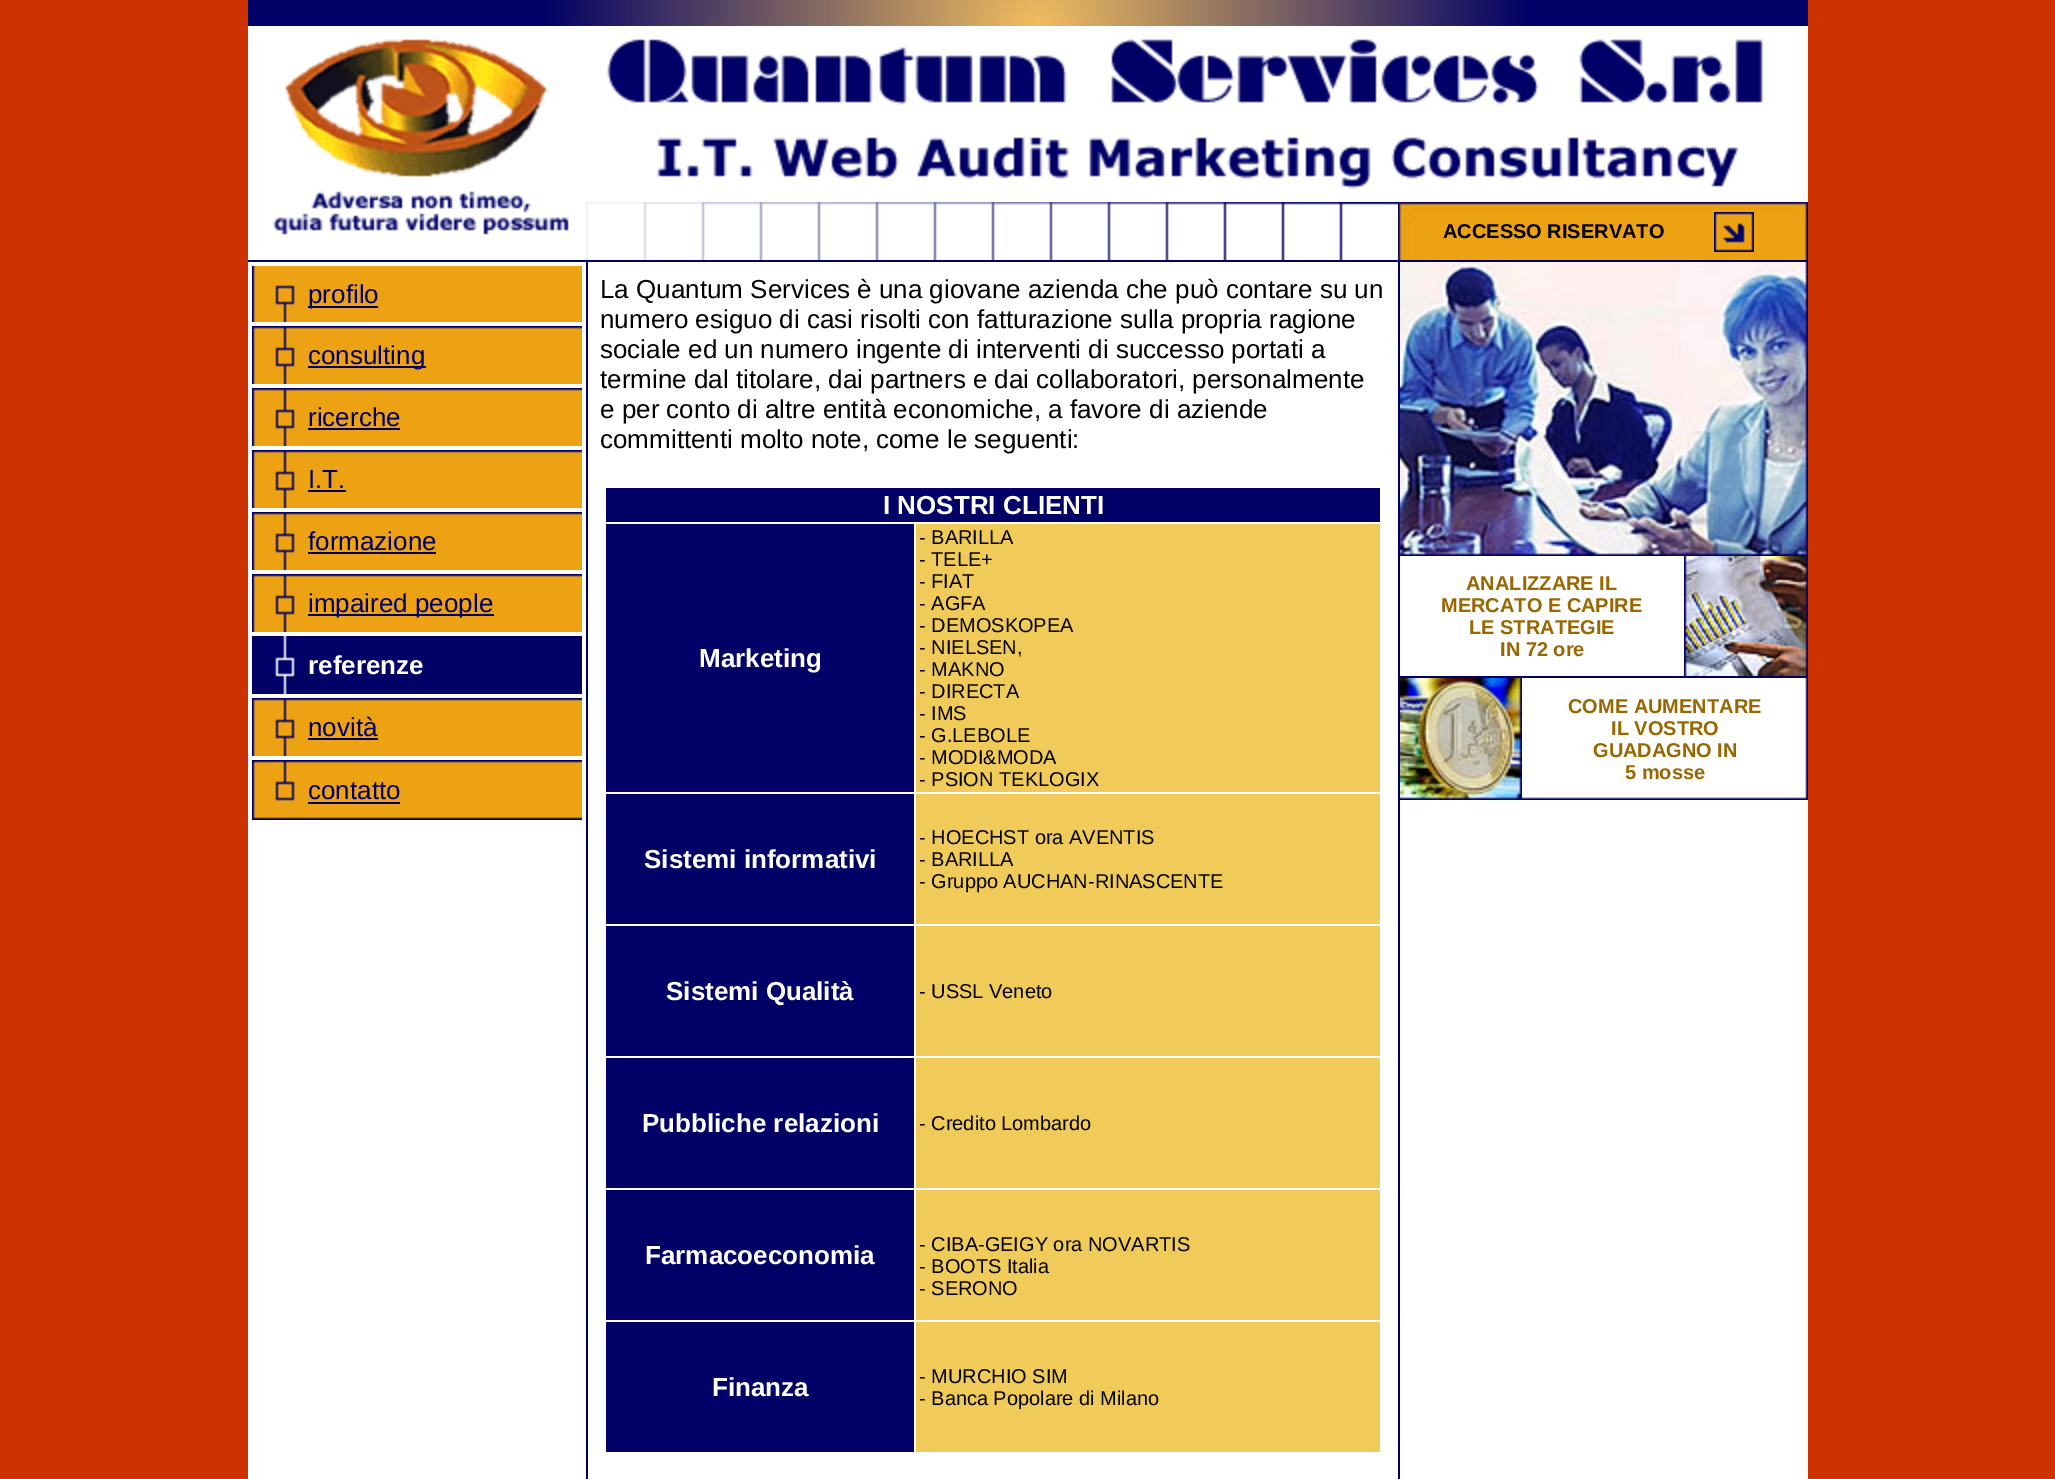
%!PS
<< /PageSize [2055 1479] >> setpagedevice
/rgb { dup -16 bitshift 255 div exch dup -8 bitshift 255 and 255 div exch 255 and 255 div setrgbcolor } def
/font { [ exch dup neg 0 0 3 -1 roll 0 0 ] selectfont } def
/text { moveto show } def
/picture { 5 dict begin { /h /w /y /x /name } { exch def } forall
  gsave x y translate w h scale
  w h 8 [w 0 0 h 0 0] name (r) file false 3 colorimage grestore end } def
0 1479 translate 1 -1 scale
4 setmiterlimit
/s1 { /LiberationSans-Bold 20 font 16#000000 rgb } def
/s2 { /LiberationSans-Regular 26 font 16#000066 rgb } def
/s3 { /LiberationSans-Bold 26 font 16#FFFFFF rgb } def
/s4 { /LiberationSans-Regular 26 font 16#000000 rgb } def
/s5 { /LiberationSans-Regular 20 font 16#000000 rgb } def
/s6 { /LiberationSans-Bold 20 font 16#996600 rgb } def
16#CC3300 rgb
0 0 2055 1479 rectfill
16#FFFFFF rgb
248 26 1560 1453 rectfill
(pic1.raw) 248 0 1560 26 picture
(pic2.raw) 273 39 296 196 picture
(pic3.raw) 607 39 1156 150 picture
(pic4.raw) 586 202 812 58 picture
(pic5.raw) 1398 202 410 58 picture
s1
(ACCESSO RISERVATO) 1443 238 text
(pic6.raw) 1714 212 40 40 picture
16#000066 rgb
248 260 1560 2 rectfill
(pic7.raw) 252 266 330 56 picture
308 306 70 2 rectfill
s2
(profilo) 308 303 text
(pic8.raw) 252 326 330 58 picture
308 366 118 2 rectfill
(consulting) 308 364 text
(pic8.raw) 252 388 330 58 picture
(ricerche) 308 426 text
308 428 92 2 rectfill
(pic8.raw) 252 450 330 58 picture
(I.T.) 308 488 text
308 490 38 2 rectfill
(pic8.raw) 252 512 330 58 picture
(formazione) 308 550 text
308 552 128 2 rectfill
(pic8.raw) 252 574 330 58 picture
308 614 186 2 rectfill
(impaired people) 308 612 text
(pic9.raw) 252 636 330 58 picture
s3
(referenze) 308 674 text
(pic8.raw) 252 698 330 58 picture
s2
(novità) 308 736 text
308 738 70 2 rectfill
(pic10.raw) 252 760 330 60 picture
(contatto) 308 799 text
308 802 92 2 rectfill
586 262 2 1217 rectfill
s4
(La Quantum Services è una giovane azienda che può contare su un) 600 298 text
(numero esiguo di casi risolti con fatturazione sulla propria ragione) 600 328 text
(sociale ed un numero ingente di interventi di successo portati a) 600 358 text
(termine dal titolare, dai partners e dai collaboratori, personalmente) 600 388 text
(e per conto di altre entità economiche, a favore di aziende) 600 418 text
(committenti molto note, come le seguenti:) 600 448 text
16#000066 rgb
606 488 774 34 rectfill
s3
(I NOSTRI CLIENTI) 883 514 text
16#000066 rgb
606 524 308 268 rectfill
s3
(Marketing) 699 667 text
16#F1CB59 rgb
916 524 464 268 rectfill
s5
(- BARILLA) 919 544 text
(- TELE+) 919 566 text
(- FIAT) 919 588 text
(- AGFA) 919 610 text
(- DEMOSKOPEA) 919 632 text
(- NIELSEN,) 919 654 text
(- MAKNO) 919 676 text
(- DIRECTA) 919 698 text
(- IMS) 919 720 text
(- G.LEBOLE) 919 742 text
(- MODI&MODA) 919 764 text
(- PSION TEKLOGIX) 919 786 text
16#000066 rgb
606 794 308 130 rectfill
s3
(Sistemi informativi) 644 868 text
16#F1CB59 rgb
916 794 464 130 rectfill
s5
(- HOECHST ora AVENTIS) 919 844 text
(- BARILLA) 919 866 text
(- Gruppo AUCHAN-RINASCENTE) 919 888 text
16#000066 rgb
606 926 308 130 rectfill
s3
(Sistemi Qualità) 666 1000 text
16#F1CB59 rgb
916 926 464 130 rectfill
s5
(- USSL Veneto) 919 998 text
16#000066 rgb
606 1058 308 130 rectfill
s3
(Pubbliche relazioni) 642 1132 text
16#F1CB59 rgb
916 1058 464 130 rectfill
s5
(- Credito Lombardo) 919 1130 text
16#000066 rgb
606 1190 308 130 rectfill
s3
(Farmacoeconomia) 645 1264 text
16#F1CB59 rgb
916 1190 464 130 rectfill
s5
(- CIBA-GEIGY ora NOVARTIS) 919 1251 text
(- BOOTS Italia) 919 1273 text
(- SERONO) 919 1295 text
16#000066 rgb
606 1322 308 130 rectfill
s3
(Finanza) 712 1396 text
16#F1CB59 rgb
916 1322 464 130 rectfill
s5
(- MURCHIO SIM) 919 1383 text
(- Banca Popolare di Milano) 919 1405 text
16#000066 rgb
1398 262 2 1217 rectfill
(pic11.raw) 1400 262 408 294 picture
s6
(ANALIZZARE IL) 1466 590 text
(MERCATO E CAPIRE) 1441 612 text
(LE STRATEGIE) 1469 634 text
(IN 72 ore) 1500 656 text
(pic12.raw) 1684 556 124 120 picture
16#000066 rgb
1400 676 408 2 rectfill
(pic13.raw) 1400 678 122 122 picture
(pic14.raw) 1522 678 286 122 picture
s6
(COME AUMENTARE) 1568 713 text
(IL VOSTRO) 1611 735 text
(GUADAGNO IN) 1593 757 text
(5 mosse) 1625 779 text
showpage
